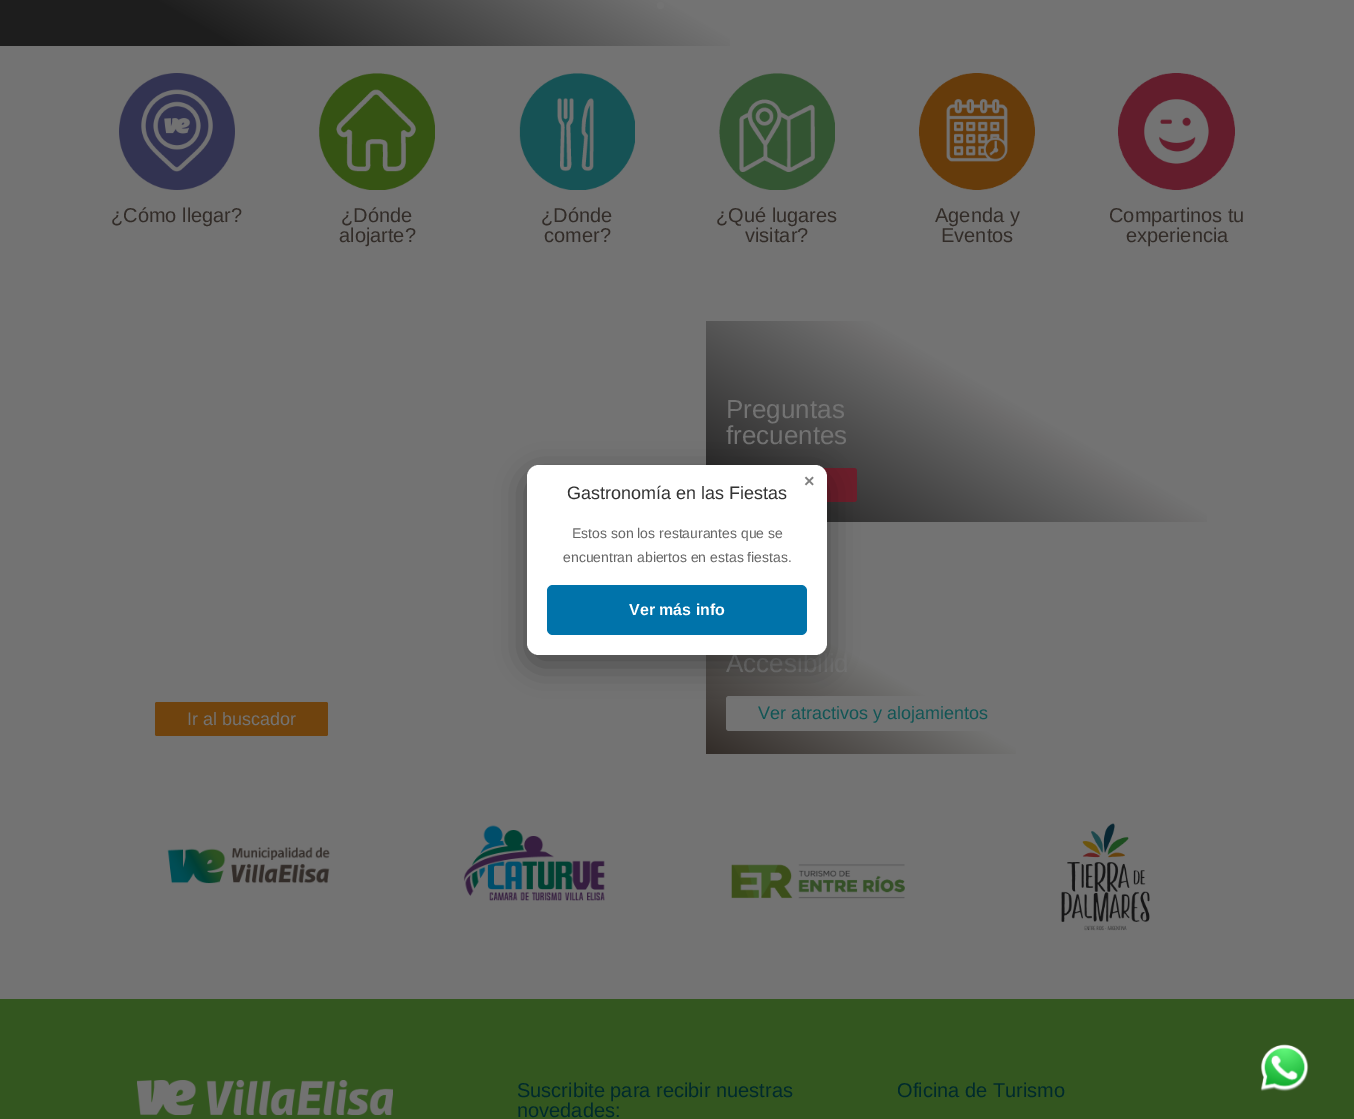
%!PS
<< /PageSize [1354 1119] /PageUsesTransparency true >> setpagedevice
/rgb { dup -16 bitshift 255 div exch dup -8 bitshift 255 and 255 div exch 255 and 255 div setrgbcolor } def
/font { [ exch dup neg 0 0 3 -1 roll 0 0 ] selectfont } def
/text { moveto show } def
/alpha { dup .setfillconstantalpha .setstrokeconstantalpha } def
/circle { newpath 0 360 arc closepath } def
/roundrect { 5 dict begin { /r /h /w /y /x } { exch def } forall
  x r add y moveto x w add y 2 copy h add r arct x w add y h add x 1 index r arct
  x y h add x y r arct x y 2 copy exch w add exch r arct closepath end } def
/shadow { 12 dict begin { /a /b /q /h /w /y /x } { exch def } forall gsave /was 0 def
  9 -2 -9 { dup b mul 4 div /e exch def 1 sub .425 mul 2.718 exch exp 1 add a .99 .min exch div /now exch def
    1 1 now sub 1 was sub div sub alpha /was now def
    w h .min e 2 mul add 0 gt { x e sub y e sub w e 2 mul add h e 2 mul add
      q e add b .6 mul add w h .min 2 div e add .min 0 .max roundrect fill } if } for grestore end } def
/picture { 5 dict begin { /h /w /y /x /name } { exch def } forall
  gsave x y translate w h scale
  w h 8 [w 0 0 h 0 0] name (r) file false 3 colorimage grestore end } def
0 .pushpdf14devicefilter
0 1119 translate 1 -1 scale
4 setmiterlimit
/s1 { /LiberationSans-Regular 20 font 16#322C28 rgb } def
/s2 { /LiberationSans-Regular 18 font 16#737373 rgb } def
/s3 { /LiberationSans-Regular 26 font 16#737373 rgb } def
/s4 { /LiberationSans-Regular 18 font 16#125555 rgb } def
/s5 { /LiberationSans-Regular 20 font 16#002A2D rgb } def
/s6 { /LiberationSans-Bold 18 font 16#808080 rgb } def
/s7 { /LiberationSans-Regular 18 font 16#333333 rgb } def
/s8 { /LiberationSans-Regular 14 font 16#666666 rgb } def
/s9 { /LiberationSans-Bold 16 font 16#FFFFFF rgb } def
16#737373 rgb
0 0 1354 1119 rectfill
gsave 0 0 moveto 730 0 lineto 730 46 lineto 0 46 lineto closepath clip newpath
<< /ShadingType 2 /ColorSpace /DeviceRGB /Coords [355 251 999 -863] /Extend [true true] /Function << /FunctionType 3 /Domain [0 1] /Functions [<< /FunctionType 2 /Domain [0 1] /C0 [0.114 0.114 0.114] /C1 [0.114 0.114 0.114] /N 1 >> << /FunctionType 2 /Domain [0 1] /C0 [0.114 0.114 0.114] /C1 [0.451 0.451 0.451] /N 1 >> << /FunctionType 2 /Domain [0 1] /C0 [0.451 0.451 0.451] /C1 [0.451 0.451 0.451] /N 1 >>] /Bounds [0.09 0.29] /Encode [0 1 0 1 0 1] >> >> shfill grestore
660.5 5.5 3.5 circle fill
(pic1.raw) 119 73 116 117 picture
s1
(¿Cómo llegar?) 111 222 text
(pic2.raw) 319 73 116 117 picture
(¿Dónde) 341 222 text
(alojarte?) 339 242 text
(pic3.raw) 519 73 116 117 picture
(¿Dónde) 541 222 text
(comer?) 544 242 text
(pic4.raw) 719 73 116 117 picture
(¿Qué lugares) 716 222 text
(visitar?) 745 242 text
(pic5.raw) 919 73 116 117 picture
(Agenda y) 935 222 text
(Eventos) 941 242 text
(pic6.raw) 1118 73 117 117 picture
(Compartinos tu) 1109 222 text
(experiencia) 1126 242 text
16#6F430E rgb
155 702 173 34 2 roundrect fill
s2
(Ir al buscador) 187 725 text
gsave 706 321 moveto 1207 321 lineto 1207 522 lineto 706 522 lineto closepath clip newpath
<< /ShadingType 2 /ColorSpace /DeviceRGB /Coords [854 608 1069 235] /Extend [true true] /Function << /FunctionType 3 /Domain [0 1] /Functions [<< /FunctionType 2 /Domain [0 1] /C0 [0.106 0.102 0.102] /C1 [0.451 0.451 0.451] /N 1 >> << /FunctionType 2 /Domain [0 1] /C0 [0.451 0.451 0.451] /C1 [0.451 0.451 0.451] /N 1 >>] /Bounds [0.6] /Encode [0 1 0 1] >> >> shfill grestore
s3
(Preguntas) 726 418 text
(frecuentes) 726 444 text
16#6B1D2B rgb
726 468 131 34 3 roundrect fill
gsave 706 575 moveto 1016 575 lineto 1016 754 lineto 706 754 lineto closepath clip newpath
<< /ShadingType 2 /ColorSpace /DeviceRGB /Coords [850 837 1073 451] /Extend [true true] /Function << /FunctionType 3 /Domain [0 1] /Functions [<< /FunctionType 2 /Domain [0 1] /C0 [0.196 0.173 0.157] /C1 [0.451 0.451 0.451] /N 1 >> << /FunctionType 2 /Domain [0 1] /C0 [0.451 0.451 0.451] /C1 [0.451 0.451 0.451] /N 1 >>] /Bounds [0.36] /Encode [0 1 0 1] >> >> shfill grestore
s3
(Accesibilid) 726 672 text
726 696 294 35 3 roundrect fill
s4
(Ver atractivos y alojamientos) 758 719 text
(pic7.raw) 167 847 163 37 picture
(pic8.raw) 463 825 142 76 picture
(pic9.raw) 731 864 174 35 picture
(pic10.raw) 1061 823 89 108 picture
16#33561F rgb
0 999 1354 120 rectfill
(pic11.raw) 137 1080 256 35 picture
s5
(Suscribite para recibir nuestras) 517 1097 text
(novedades:) 517 1117 text
(Oficina de Turismo) 897 1097 text
16#000000 rgb
527 475 300 190 12 15 0.35 shadow
16#FFFFFF rgb
527 465 300 190 12 roundrect fill
s6
(×) 804 487 text
s7
(Gastronomía en las Fiestas) 567 499 text
s8
(Estos son los restaurantes que se) 572 538 text
(encuentran abiertos en estas fiestas.) 563 562 text
16#0073AA rgb
547 585 260 50 6 roundrect fill
s9
(Ver más info) 629 615 text
(pic12.raw) 1260 1044 49 48 picture
.poppdf14devicefilter showpage
